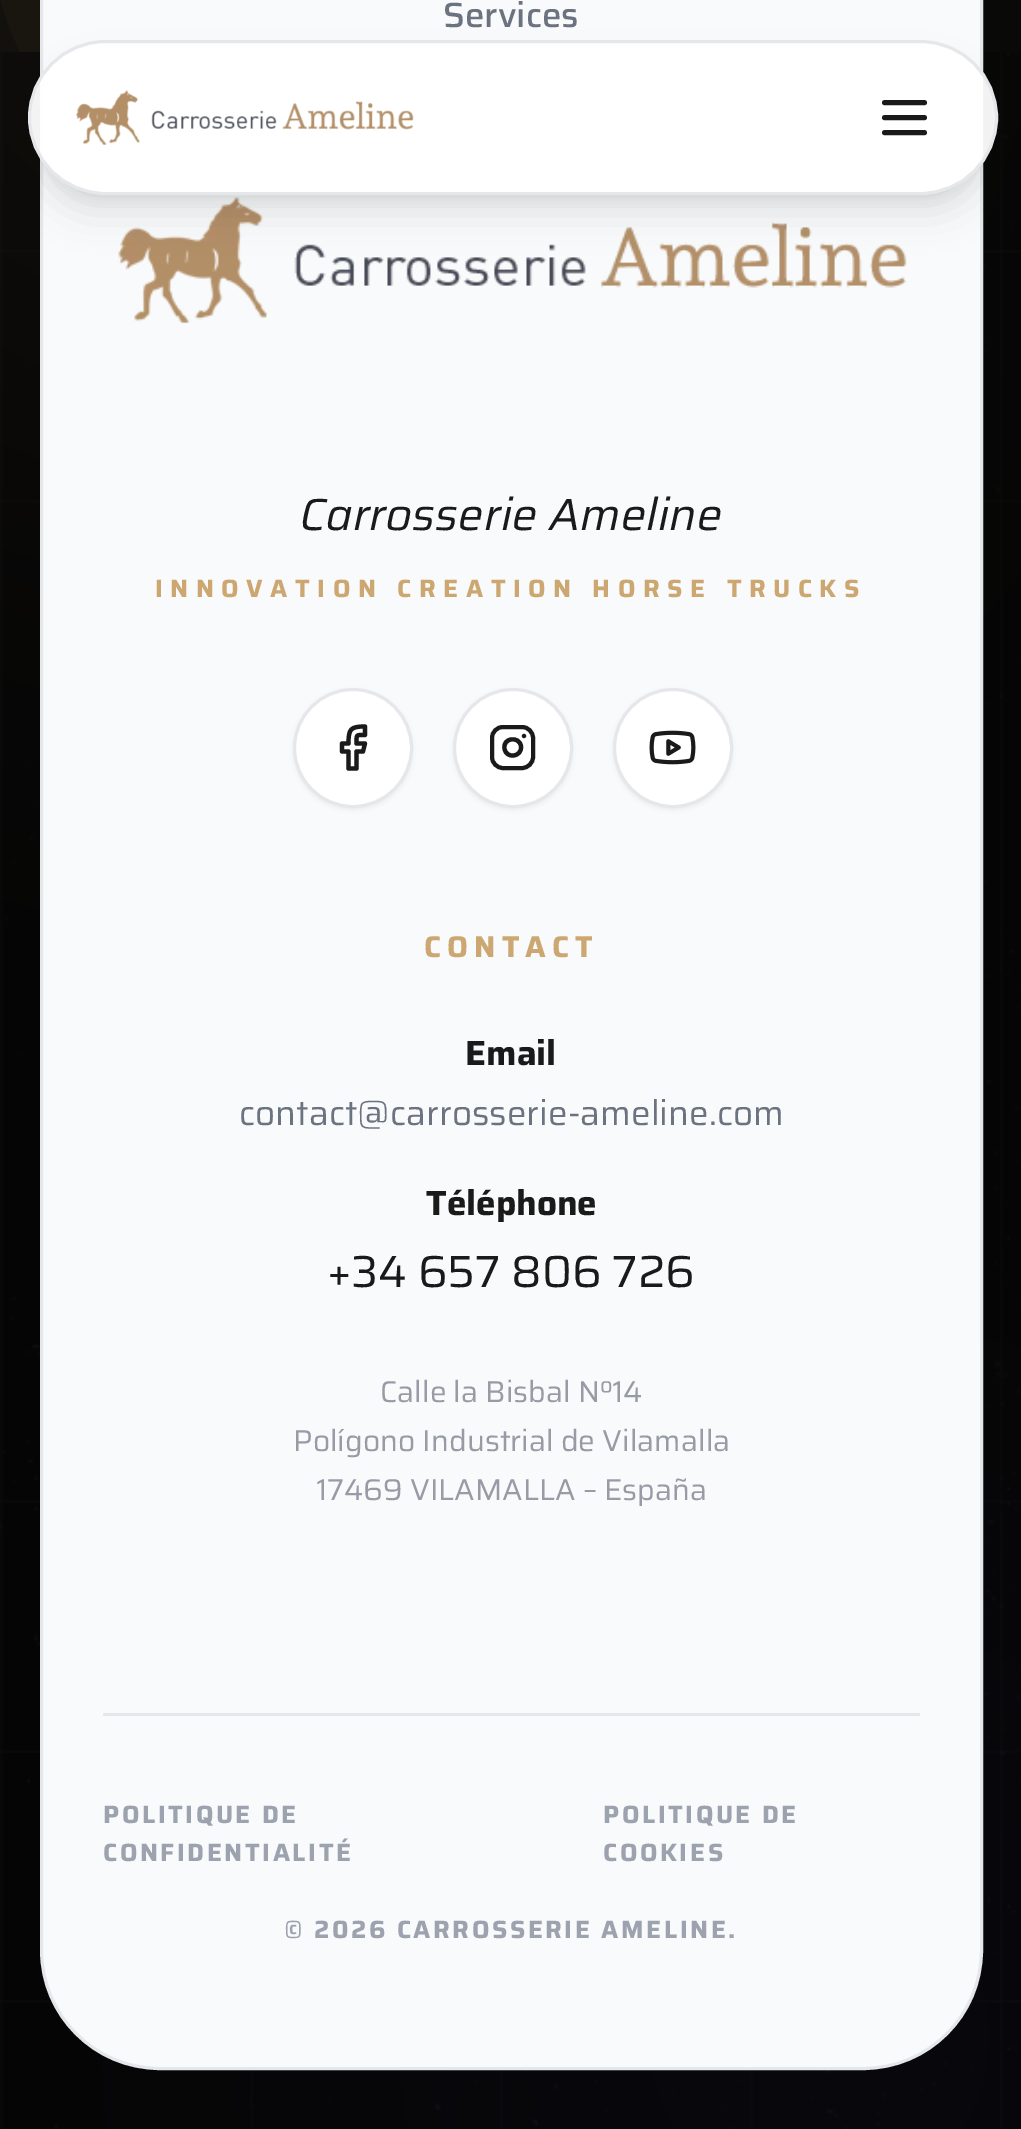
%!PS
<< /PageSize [1021 2129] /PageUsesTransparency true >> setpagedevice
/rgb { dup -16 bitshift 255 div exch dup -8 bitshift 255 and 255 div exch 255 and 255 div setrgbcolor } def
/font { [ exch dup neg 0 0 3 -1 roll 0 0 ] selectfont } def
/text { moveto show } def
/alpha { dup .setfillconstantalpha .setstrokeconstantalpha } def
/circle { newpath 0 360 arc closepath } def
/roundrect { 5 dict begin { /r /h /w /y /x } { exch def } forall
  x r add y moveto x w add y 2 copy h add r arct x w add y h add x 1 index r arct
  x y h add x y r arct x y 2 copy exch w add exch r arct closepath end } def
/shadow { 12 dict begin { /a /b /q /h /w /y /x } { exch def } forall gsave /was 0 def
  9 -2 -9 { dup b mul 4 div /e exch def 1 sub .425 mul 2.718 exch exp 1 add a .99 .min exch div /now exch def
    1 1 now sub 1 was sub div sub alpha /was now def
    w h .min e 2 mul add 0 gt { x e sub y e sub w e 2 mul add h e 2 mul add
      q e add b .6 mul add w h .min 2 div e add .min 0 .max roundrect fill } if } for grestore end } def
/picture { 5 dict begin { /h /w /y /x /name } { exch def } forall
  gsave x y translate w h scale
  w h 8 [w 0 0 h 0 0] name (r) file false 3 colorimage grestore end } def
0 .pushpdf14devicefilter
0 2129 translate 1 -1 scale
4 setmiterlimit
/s1 { /Saira-Medium 35 font 16#6B7280 rgb } def
/s2 { /Saira-Italic 45 font 16#1A1A1A rgb } def
/s3 { /Saira-Bold 35 font 16#1A1A1A rgb } def
/s4 { /Saira-Regular 35 font 16#6B7280 rgb } def
/s5 { /Saira-Regular 45 font 16#1A1A1A rgb } def
/s6 { /Saira-Regular 30 font 16#969BA5 rgb } def
16#050505 rgb
0 0 1021 2129 rectfill
16#231D15 rgb
-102 -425 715 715 357.5 375 1 shadow
(pic1.raw) 0 52 1021 2077 picture
16#F9FAFB rgb
41.5 -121.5 940 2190 118.5 roundrect gsave fill grestore
16#E5E7EB rgb
3 setlinewidth
stroke
s1
(Services) 443 27 text
(pic2.raw) 118 197 789 127 picture
s2
(Carrosserie Ameline) 300 530 text
/Saira-Bold 25 font
16#CCA772 rgb
155 597 moveto 7.5 0 (INNOVATION CREATION HORSE TRUCKS) ashow
16#000000 rgb
293 690 120 120 60 2.5 0.05 shadow
16#FFFFFF rgb
353 748 58.5 circle gsave fill grestore
16#E5E7EB rgb
stroke
16#1A1A1A rgb
4.2 setlinewidth
1 setlinecap
1 setlinejoin
365 726.5 moveto 350.5 726.5 348.5 729 348.5 743.5 curveto 342 743.5 lineto 342 751.5 lineto 348.5 751.5 lineto 348.5 768.5 lineto 356.5 768.5 lineto 356.5 751.5 lineto 363 751.5 lineto 365 743.5 lineto 356.5 743.5 lineto 356.5 734 356 735 365 735 curveto closepath stroke
16#000000 rgb
453 690 120 120 60 2.5 0.05 shadow
16#FFFFFF rgb
513 748 58.5 circle gsave fill grestore
16#E5E7EB rgb
3 setlinewidth
0 setlinecap
0 setlinejoin
stroke
16#1A1A1A rgb
4 setlinewidth
492 727 41 41 11 roundrect stroke
4.2 setlinewidth
1 setlinecap
1 setlinejoin
521 746 moveto 522.5 757 506 759.5 504.5 748.5 curveto 502.5 738 519 735.5 521 746 curveto closepath 524 736 moveto 524 736 lineto stroke
16#000000 rgb
613 690 120 120 60 2.5 0.05 shadow
16#FFFFFF rgb
673 748 58.5 circle gsave fill grestore
16#E5E7EB rgb
3 setlinewidth
0 setlinecap
0 setlinejoin
stroke
(pic3.raw) 649 730 47 35 picture
/Saira-Bold 30 font
16#CCA772 rgb
424 957 moveto 6 0 (CONTACT) ashow
s3
(Email) 465 1065 text
s4
(contact@carrosserie-ameline.com) 239 1125 text
s3
(Téléphone) 426 1215 text
s5
(+34 657 806 726) 327 1287 text
s6
(Calle la Bisbal Nº14) 380 1402 text
(Polígono Industrial de Vilamalla) 293 1451 text
(17469 VILAMALLA – España) 316 1500 text
16#E5E7EB rgb
103 1713 817 3 rectfill
/Saira-Bold 25 font
16#9CA3AF rgb
103 1823 moveto 2.5 0 (POLITIQUE DE) ashow
103 1861 moveto 2.5 0 (CONFIDENTIALITÉ) ashow
603 1823 moveto 2.5 0 (POLITIQUE DE) ashow
603 1861 moveto 2.5 0 (COOKIES) ashow
284 1938 moveto 2.5 0 (© 2026 CARROSSERIE AMELINE.) ashow
gsave
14 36 moveto 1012 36 lineto 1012 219 lineto 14 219 lineto closepath 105.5 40 moveto 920.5 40 lineto 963.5 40 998 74.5 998 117.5 curveto 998 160.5 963.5 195 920.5 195 curveto 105.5 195 lineto 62.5 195 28 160.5 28 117.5 curveto 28 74.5 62.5 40 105.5 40 curveto closepath eoclip newpath
16#000000 rgb
38 60 950 135 67.5 7.5 0.1 shadow
grestore
gsave
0 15 moveto 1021 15 lineto 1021 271 lineto 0 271 lineto closepath 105.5 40 moveto 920.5 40 lineto 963.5 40 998 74.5 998 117.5 curveto 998 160.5 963.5 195 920.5 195 curveto 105.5 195 lineto 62.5 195 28 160.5 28 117.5 curveto 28 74.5 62.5 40 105.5 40 curveto closepath eoclip newpath
16#000000 rgb
35 73 955 140 70 19 0.1 shadow
grestore
0.95 alpha
16#FFFFFF rgb
29.5 41.5 967 152 76 roundrect fill
1 alpha
16#E5E7EB rgb
29.5 41.5 967 152 76 roundrect stroke
(pic4.raw) 76 90 338 55 picture
16#1A1A1A rgb
5 setlinewidth
1 setlinecap
1 setlinejoin
884.5 117.5 moveto 924.5 117.5 lineto 884.5 102.5 moveto 924.5 102.5 lineto 884.5 132.5 moveto 924.5 132.5 lineto stroke
.poppdf14devicefilter showpage
